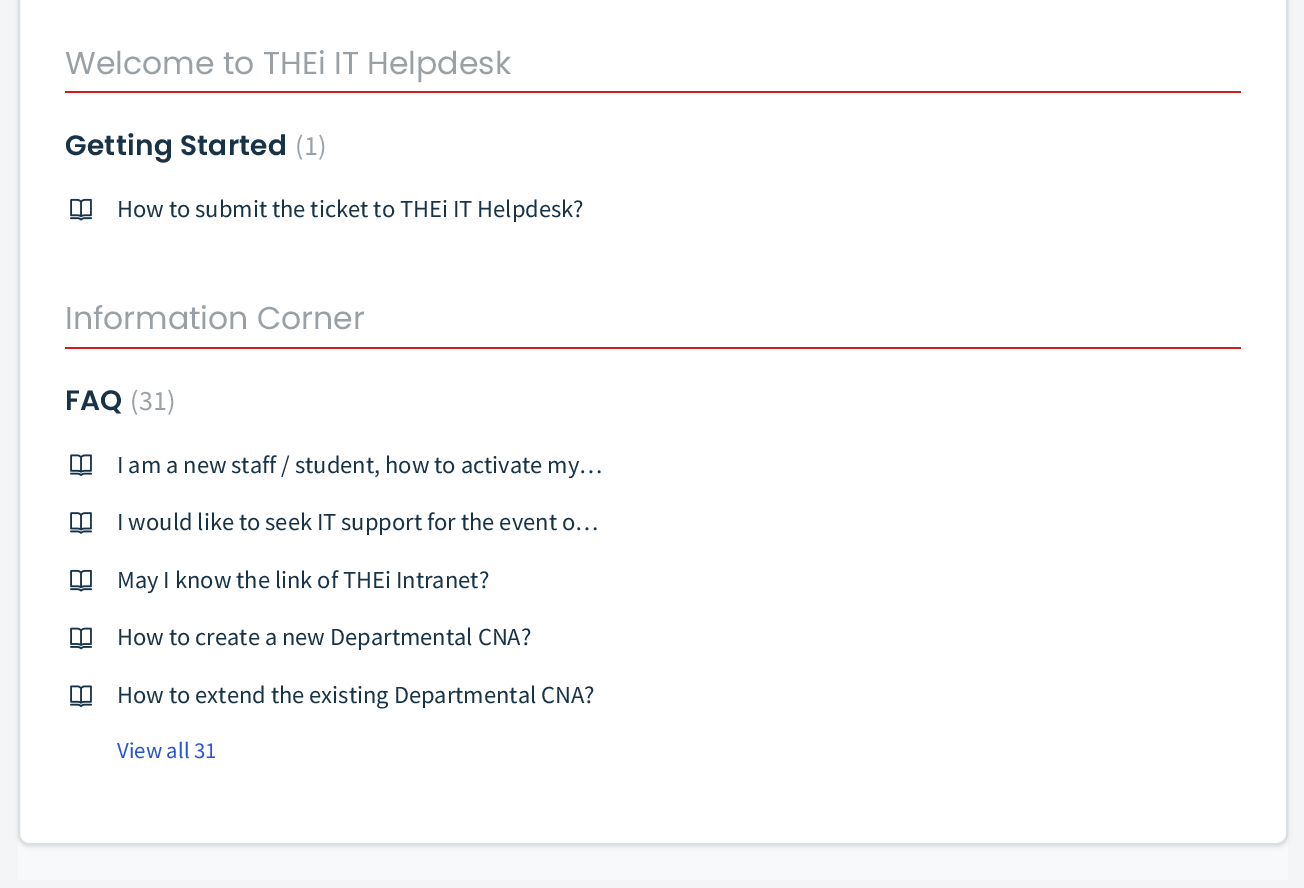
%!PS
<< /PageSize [1304 888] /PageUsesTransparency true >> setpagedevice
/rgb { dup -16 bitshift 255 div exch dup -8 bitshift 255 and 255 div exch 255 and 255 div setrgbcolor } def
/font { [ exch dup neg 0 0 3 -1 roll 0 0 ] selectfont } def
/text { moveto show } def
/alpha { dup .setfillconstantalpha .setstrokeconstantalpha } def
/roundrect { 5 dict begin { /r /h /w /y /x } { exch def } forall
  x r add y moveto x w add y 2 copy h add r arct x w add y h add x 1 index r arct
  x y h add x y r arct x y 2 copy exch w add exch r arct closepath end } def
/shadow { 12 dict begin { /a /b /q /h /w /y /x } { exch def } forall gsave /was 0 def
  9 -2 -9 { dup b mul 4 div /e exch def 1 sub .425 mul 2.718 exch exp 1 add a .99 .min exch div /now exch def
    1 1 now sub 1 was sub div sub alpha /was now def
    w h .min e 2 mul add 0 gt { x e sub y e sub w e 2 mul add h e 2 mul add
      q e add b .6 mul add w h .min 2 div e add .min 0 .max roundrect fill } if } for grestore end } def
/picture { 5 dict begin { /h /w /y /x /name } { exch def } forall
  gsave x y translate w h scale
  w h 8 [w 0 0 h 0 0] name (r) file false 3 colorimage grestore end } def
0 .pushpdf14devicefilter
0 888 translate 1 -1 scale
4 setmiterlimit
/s1 { /Poppins-Regular 31.5 font 16#9AA1A6 rgb } def
/s2 { /SourceSansPro-Regular 24.5 font 16#183247 rgb } def
/s3 { /SourceSansPro-Regular 22.75 font 16#2753D7 rgb } def
16#F3F5F7 rgb
0 0 1304 888 rectfill
16#F8F9FA rgb
18 834 1270 46 rectfill
16#3F3F44 rgb
18 -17 1270 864 11 2 0.15 shadow
16#FFFFFF rgb
19 -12 1268 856 10 roundrect gsave fill grestore
16#DADFE3 rgb
2 setlinewidth
stroke
16#D71920 rgb
65 91 1176 2 rectfill
s1
(Welcome to THEi IT Helpdesk) 65 74 text
/Poppins-SemiBold 28 font
16#183247 rgb
65 155 moveto 0.3 0 (Getting Started) ashow
/SourceSansPro-Regular 28 font
16#9AA1A6 rgb
295 155 moveto 0.3 0 (\(1\)) ashow
(pic1.raw) 70 198 22 23 picture
s2
(How to submit the ticket to THEi IT Helpdesk?) 117 217 text
16#D71920 rgb
65 347 1176 2 rectfill
s1
(Information Corner) 65 329 text
/Poppins-SemiBold 28 font
16#183247 rgb
65 410 moveto 0.3 0 (FAQ) ashow
/SourceSansPro-Regular 28 font
16#9AA1A6 rgb
130 410 moveto 0.3 0 (\(31\)) ashow
(pic2.raw) 70 454 22 23 picture
s2
(I am a new staff / student, how to activate my…) 117 473 text
(pic3.raw) 70 512 22 22 picture
(I would like to seek IT support for the event o…) 117 530 text
(pic1.raw) 70 569 22 23 picture
(May I know the link of THEi Intranet?) 117 588 text
(pic4.raw) 70 627 22 23 picture
(How to create a new Departmental CNA?) 117 645 text
(pic2.raw) 70 685 22 23 picture
(How to extend the existing Departmental CNA?) 117 703 text
s3
(View all 31) 117 758 text
.poppdf14devicefilter showpage
